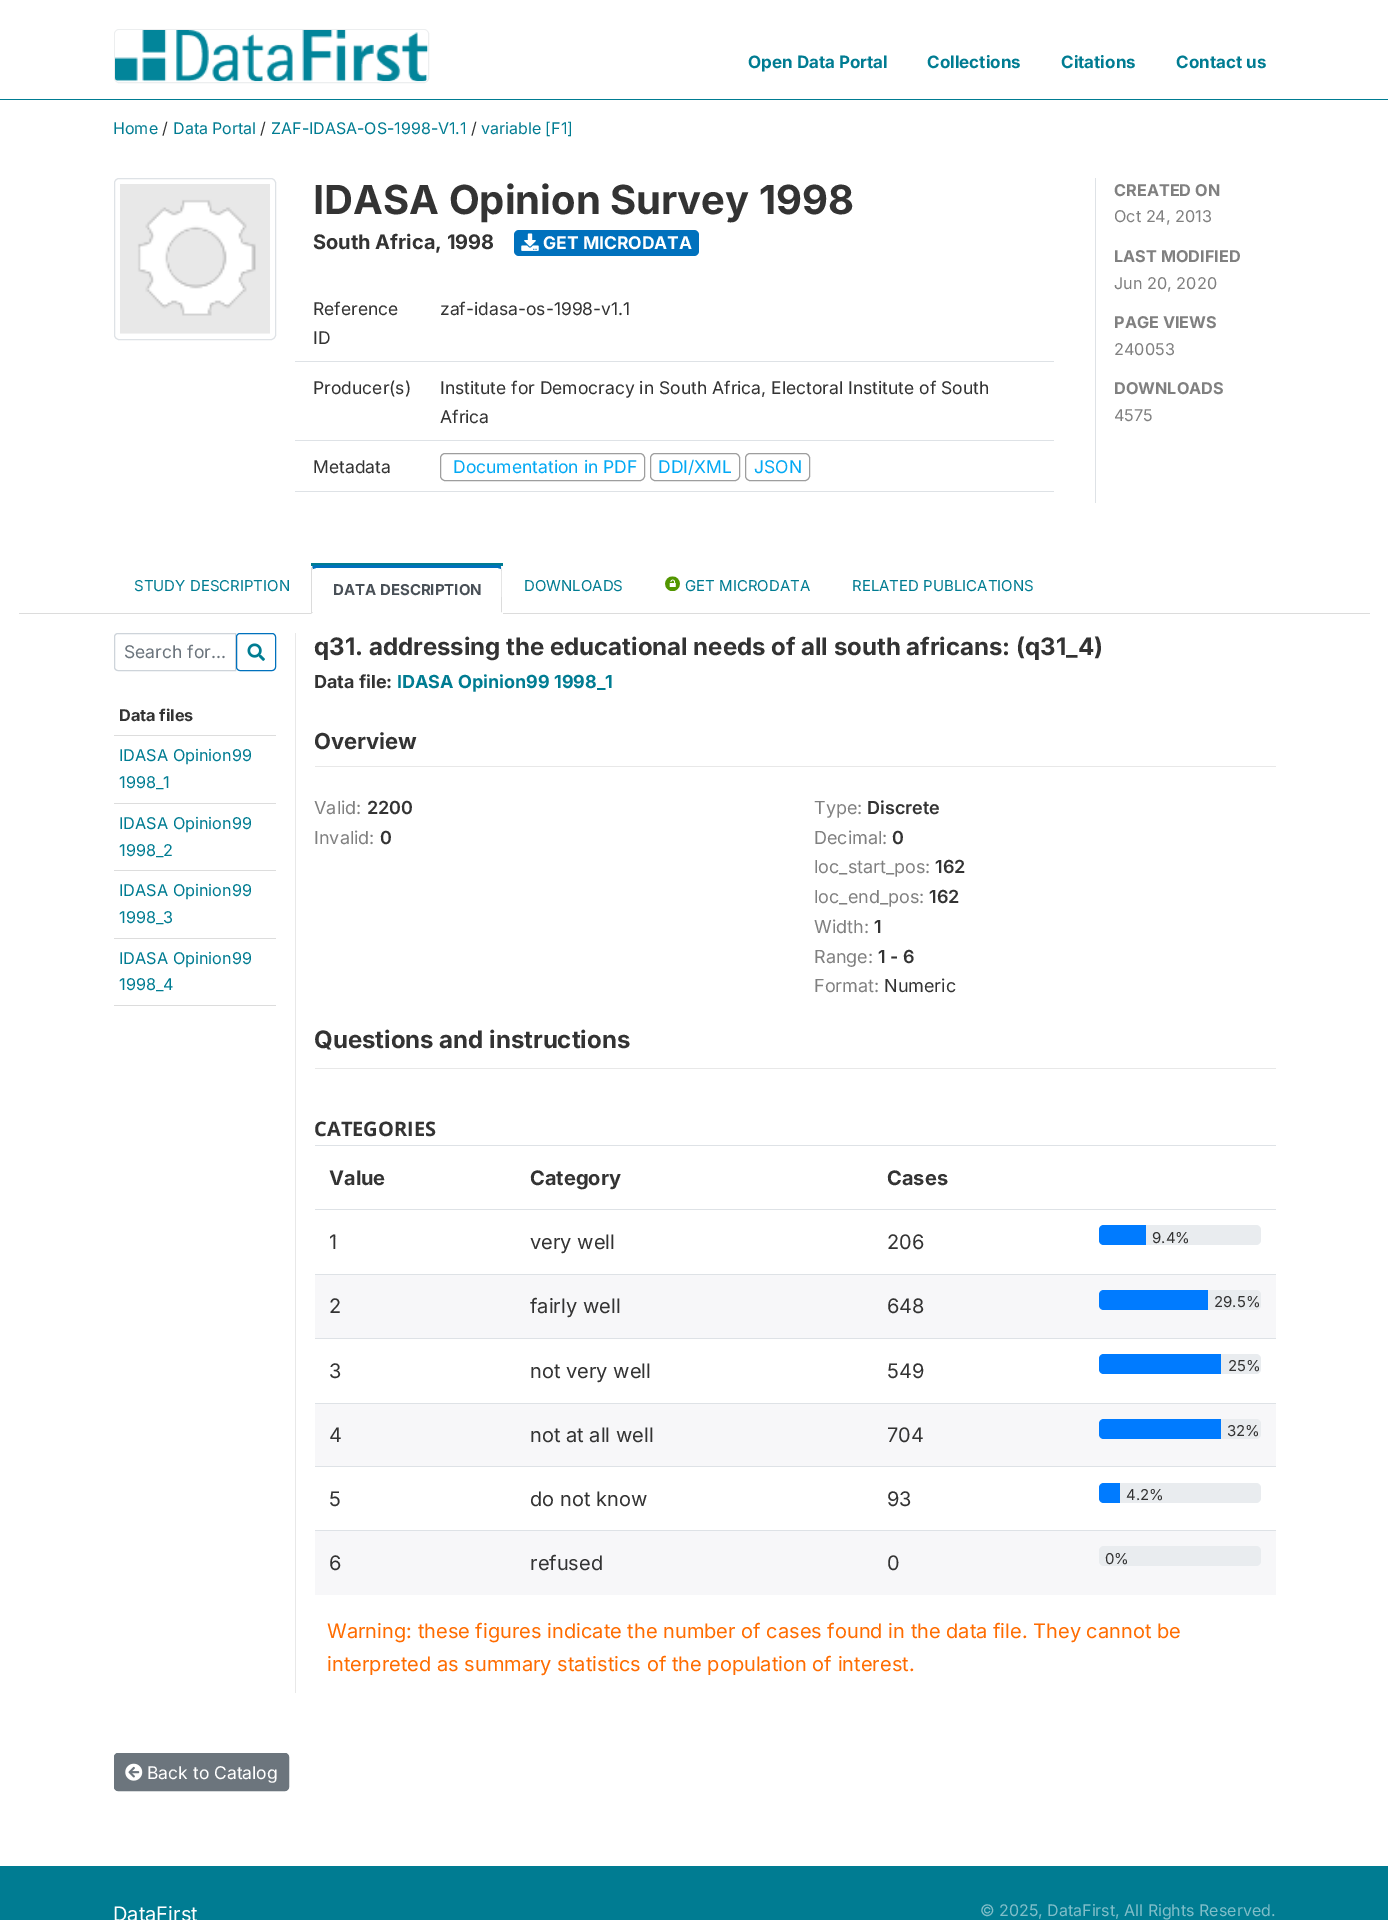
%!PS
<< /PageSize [1388 1920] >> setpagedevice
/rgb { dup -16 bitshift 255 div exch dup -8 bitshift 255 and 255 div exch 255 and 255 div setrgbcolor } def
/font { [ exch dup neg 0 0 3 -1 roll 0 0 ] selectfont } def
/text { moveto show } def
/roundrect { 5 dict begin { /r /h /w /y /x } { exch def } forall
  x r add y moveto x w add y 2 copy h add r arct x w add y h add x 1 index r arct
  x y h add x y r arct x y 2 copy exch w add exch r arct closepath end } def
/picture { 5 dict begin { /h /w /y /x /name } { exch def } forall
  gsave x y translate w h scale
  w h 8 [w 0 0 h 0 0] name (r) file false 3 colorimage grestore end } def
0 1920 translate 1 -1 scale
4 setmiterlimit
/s1 { /Inter-Bold 17 font 16#007C92 rgb } def
/s2 { /Inter-Regular 16 font 16#007C92 rgb } def
/s3 { /Inter-Regular 16 font 16#333333 rgb } def
/s4 { /Inter-Bold 40 font 16#333333 rgb } def
/s5 { /Inter-Bold 20 font 16#333333 rgb } def
/s6 { /Inter-Bold 17.5 font 16#FFFFFF rgb } def
/s7 { /Inter-Regular 17.5 font 16#333333 rgb } def
/s8 { /Inter-Regular 17.5 font 16#03A9F4 rgb } def
/s9 { /Inter-Bold 16.25 font 16#808080 rgb } def
/s10 { /Inter-Regular 16.25 font 16#808080 rgb } def
/s11 { /Inter-Regular 15 font 16#007C92 rgb } def
/s12 { /Inter-Bold 15 font 16#495057 rgb } def
/s13 { /Inter-Regular 17.5 font 16#6C757D rgb } def
/s14 { /Inter-Bold 16.25 font 16#333333 rgb } def
/s15 { /Inter-Regular 16.25 font 16#007C92 rgb } def
/s16 { /Inter-Bold 24 font 16#333333 rgb } def
/s17 { /Inter-Bold 18 font 16#333333 rgb } def
/s18 { /Inter-Bold 18 font 16#007C92 rgb } def
/s19 { /Inter-Bold 22 font 16#333333 rgb } def
/s20 { /Inter-Regular 18 font 16#808080 rgb } def
/s21 { /Inter-SemiBold 18 font 16#333333 rgb } def
/s22 { /Inter-Regular 18 font 16#333333 rgb } def
/s23 { /OpenSans-Bold 20 font 16#333333 rgb } def
/s24 { /Inter-Regular 20 font 16#333333 rgb } def
/s25 { /Inter-Regular 15 font 16#333333 rgb } def
/s26 { /Inter-Regular 20 font 16#FF6C00 rgb } def
/s27 { /Inter-Regular 17.5 font 16#FFFFFF rgb } def
/s28 { /Inter-Regular 20 font 16#FFFFFF rgb } def
/s29 { /Inter-Regular 16 font 16#80BEC9 rgb } def
16#FFFFFF rgb
0 0 1388 1920 rectfill
16#007C92 rgb
0 99 1388 1 rectfill
16#ECEEEF rgb
114.5 29.5 314 53 4.5 roundrect stroke
(pic1.raw) 115 30 313 52 picture
s1
(Open Data Portal) 748 68 text
(Collections) 927 68 text
(Citations) 1061 68 text
(Contact us) 1176 68 text
s2
(Home) 113 134 text
s3
(/) 162 134 text
s2
(Data Portal) 173 134 text
s3
(/) 260 134 text
s2
(ZAF-IDASA-OS-1998-V1.1) 271 134 text
s3
(/) 471 134 text
s2
(variable [F1]) 481 134 text
16#DCDCDC rgb
19 613 1351 1 rectfill
16#DEE2E6 rgb
114.5 178.5 161 161 4.5 roundrect stroke
(pic2.raw) 120 184 150 150 picture
s4
(IDASA Opinion Survey 1998) 313 214 text
s5
(South Africa, 1998) 313 249 text
16#0071BD rgb
514 230 185 26 5 roundrect fill
(pic3.raw) 521 233 18 18 picture
s6
(GET MICRODATA) 543 249 text
16#DEE2E6 rgb
295 361 759 1 rectfill
s7
(Reference) 313 315 text
(ID) 313 344 text
(zaf-idasa-os-1998-v1.1) 440 315 text
16#DEE2E6 rgb
295 440 759 1 rectfill
s7
(Producer\(s\)) 313 394 text
(Institute for Democracy in South Africa, Electoral Institute of South) 440 394 text
(Africa) 440 423 text
16#DEE2E6 rgb
295 491 759 1 rectfill
s7
(Metadata) 313 473 text
16#9E9E9E rgb
440.5 453.5 204 27 4.5 roundrect stroke
s8
(Documentation in PDF) 453 473 text
16#9E9E9E rgb
650.5 453.5 89 27 4.5 roundrect stroke
s8
(DDI/XML) 658 473 text
16#9E9E9E rgb
745.5 453.5 64 27 4.5 roundrect stroke
s8
(JSON) 754 473 text
16#DEE2E6 rgb
1095 178 1 325 rectfill
s9
(CREATED ON) 1114 196 text
s10
(Oct 24, 2013) 1114 222 text
s9
(LAST MODIFIED) 1114 262 text
s10
(Jun 20, 2020) 1114 289 text
s9
(PAGE VIEWS) 1114 328 text
s10
(240053) 1114 355 text
s9
(DOWNLOADS) 1114 394 text
s10
(4575) 1114 421 text
s11
(STUDY DESCRIPTION) 134 591 text
16#FFFFFF rgb
311 613 192 1 rectfill
16#007C92 rgb
311 563 192 3 rectfill
16#0071BC rgb
316 565 moveto 314 565 313 566 312 567 curveto 313 569 lineto 316 568 lineto 498 568 lineto 501 569 lineto 501 567 lineto 501 566 499 565 498 565 curveto closepath fill
16#DCDCDC rgb
501 567 moveto 502 570 lineto 502 613 lineto 501 612 lineto 501 607 502 570 501 569 curveto closepath fill
16#FFFFFF rgb
502 613 moveto 502 614 lineto 311 614 lineto 313 612 lineto 501 612 lineto closepath fill
16#DCDCDC rgb
311 614 moveto 311 568 lineto 312 567 lineto 313 569 lineto 312 570 lineto 312 612 lineto 313 612 lineto closepath fill
s12
(DATA DESCRIPTION) 333 595 text
s11
(DOWNLOADS) 524 591 text
(pic4.raw) 665 576 15 15 picture
(GET MICRODATA) 685 591 text
(RELATED PUBLICATIONS) 852 591 text
16#CED4DA rgb
118 633.5 moveto 235.5 633.5 lineto 235.5 670.5 lineto 118 670.5 lineto 116 670.5 114.5 669 114.5 667 curveto 114.5 637 lineto 114.5 635 116 633.5 118 633.5 curveto closepath stroke
s13
(Search for...) 124 658 text
16#0071BD rgb
236.5 633.5 39 37 3.5 roundrect stroke
(pic5.raw) 247 643 18 18 picture
s14
(Data files) 119 721 text
16#DDDDDD rgb
114 735 162 1 rectfill
s15
(IDASA Opinion99) 119 761 text
(1998_1) 119 788 text
16#DDDDDD rgb
114 803 162 1 rectfill
s15
(IDASA Opinion99) 119 829 text
(1998_2) 119 856 text
16#DDDDDD rgb
114 870 162 1 rectfill
s15
(IDASA Opinion99) 119 896 text
(1998_3) 119 923 text
16#DDDDDD rgb
114 938 162 1 rectfill
16#DCDCDC rgb
114 1005 162 1 rectfill
s15
(IDASA Opinion99) 119 964 text
(1998_4) 119 990 text
16#E8E8E8 rgb
295 633 1 1060 rectfill
s16
(q31. addressing the educational needs of all south africans: \(q31_4\)) 314 655 text
s17
(Data file:) 314 688 text
s18
(IDASA Opinion99 1998_1) 397 688 text
16#E8E8E8 rgb
315 766 961 1 rectfill
s19
(Overview) 314 749 text
s20
(Valid:) 314 814 text
s21
(2200) 367 814 text
s20
(Invalid:) 314 844 text
s21
(0) 380 844 text
s20
(Type:) 814 814 text
s21
(Discrete) 867 814 text
s20
(Decimal:) 814 844 text
s21
(0) 892 844 text
s20
(loc_start_pos:) 814 873 text
s21
(162) 935 873 text
s20
(loc_end_pos:) 814 903 text
s21
(162) 929 903 text
s20
(Width:) 814 933 text
s21
(1) 874 933 text
s20
(Range:) 814 963 text
s21
(1 - 6) 878 963 text
s20
(Format:) 814 992 text
s22
(Numeric) 884 992 text
16#E8E8E8 rgb
315 1068 961 1 rectfill
s16
(Questions and instructions) 314 1048 text
s23
(CATEGORIES) 314 1136 text
16#DEE2E6 rgb
315 1145 961 1 rectfill
s5
(Value) 329 1185 text
(Category) 530 1185 text
(Cases) 887 1185 text
s24
(1) 329 1249 text
(very well) 530 1249 text
(206) 887 1249 text
16#DEE2E6 rgb
315 1209 961 1 rectfill
16#E9ECEF rgb
1099 1225 162 20 5 roundrect fill
16#007BFF rgb
1104 1225 moveto 1146 1225 lineto 1146 1245 lineto 1104 1245 lineto 1101 1245 1099 1243 1099 1240 curveto 1099 1230 lineto 1099 1227 1101 1225 1104 1225 curveto closepath fill
s25
(9.4%) 1152 1243 text
16#F7F7F9 rgb
315 1275 961 63 rectfill
s24
(2) 329 1313 text
(fairly well) 530 1313 text
(648) 887 1313 text
16#DEE2E6 rgb
315 1274 961 1 rectfill
16#E9ECEF rgb
1099 1290 162 20 5 roundrect fill
16#007BFF rgb
1104 1290 moveto 1208 1290 lineto 1208 1310 lineto 1104 1310 lineto 1101 1310 1099 1308 1099 1305 curveto 1099 1295 lineto 1099 1292 1101 1290 1104 1290 curveto closepath fill
s25
(29.5%) 1214 1307 text
s24
(3) 329 1378 text
(not very well) 530 1378 text
(549) 887 1378 text
16#DEE2E6 rgb
315 1338 961 1 rectfill
16#E9ECEF rgb
1099 1354 162 20 5 roundrect fill
16#007BFF rgb
1104 1354 moveto 1221 1354 lineto 1221 1374 lineto 1104 1374 lineto 1101 1374 1099 1372 1099 1369 curveto 1099 1359 lineto 1099 1356 1101 1354 1104 1354 curveto closepath fill
s25
(25%) 1228 1371 text
16#F7F7F9 rgb
315 1404 961 62 rectfill
s24
(4) 329 1442 text
(not at all well) 530 1442 text
(704) 887 1442 text
16#DEE2E6 rgb
315 1403 961 1 rectfill
16#E9ECEF rgb
1099 1419 162 20 5 roundrect fill
16#007BFF rgb
1104 1419 moveto 1221 1419 lineto 1221 1439 lineto 1104 1439 lineto 1101 1439 1099 1437 1099 1434 curveto 1099 1424 lineto 1099 1421 1101 1419 1104 1419 curveto closepath fill
s25
(32%) 1227 1436 text
s24
(5) 329 1506 text
(do not know) 530 1506 text
(93) 887 1506 text
16#DEE2E6 rgb
315 1466 961 1 rectfill
16#E9ECEF rgb
1099 1483 162 20 5 roundrect fill
16#007BFF rgb
1104 1483 moveto 1120 1483 lineto 1120 1503 lineto 1104 1503 lineto 1101 1503 1099 1501 1099 1498 curveto 1099 1488 lineto 1099 1485 1101 1483 1104 1483 curveto closepath fill
s25
(4.2%) 1126 1500 text
16#F7F7F9 rgb
315 1531 961 64 rectfill
s24
(6) 329 1570 text
(refused) 530 1570 text
(0) 887 1570 text
16#DEE2E6 rgb
315 1530 961 1 rectfill
16#E9ECEF rgb
1099 1546 162 20 5 roundrect fill
s25
(0%) 1105 1564 text
s26
(Warning: these figures indicate the number of cases found in the data file. They cannot be) 327 1638 text
(interpreted as summary statistics of the population of interest.) 327 1671 text
16#6C757D rgb
114.5 1753.5 174 37 3.5 roundrect gsave fill grestore
stroke
(pic6.raw) 125 1763 18 18 picture
s27
(Back to Catalog) 147 1779 text
16#007C92 rgb
0 1866 1388 54 rectfill
s28
(DataFirst) 113 1921 text
s29
(© 2025, DataFirst, All Rights Reserved.) 980 1916 text
showpage
